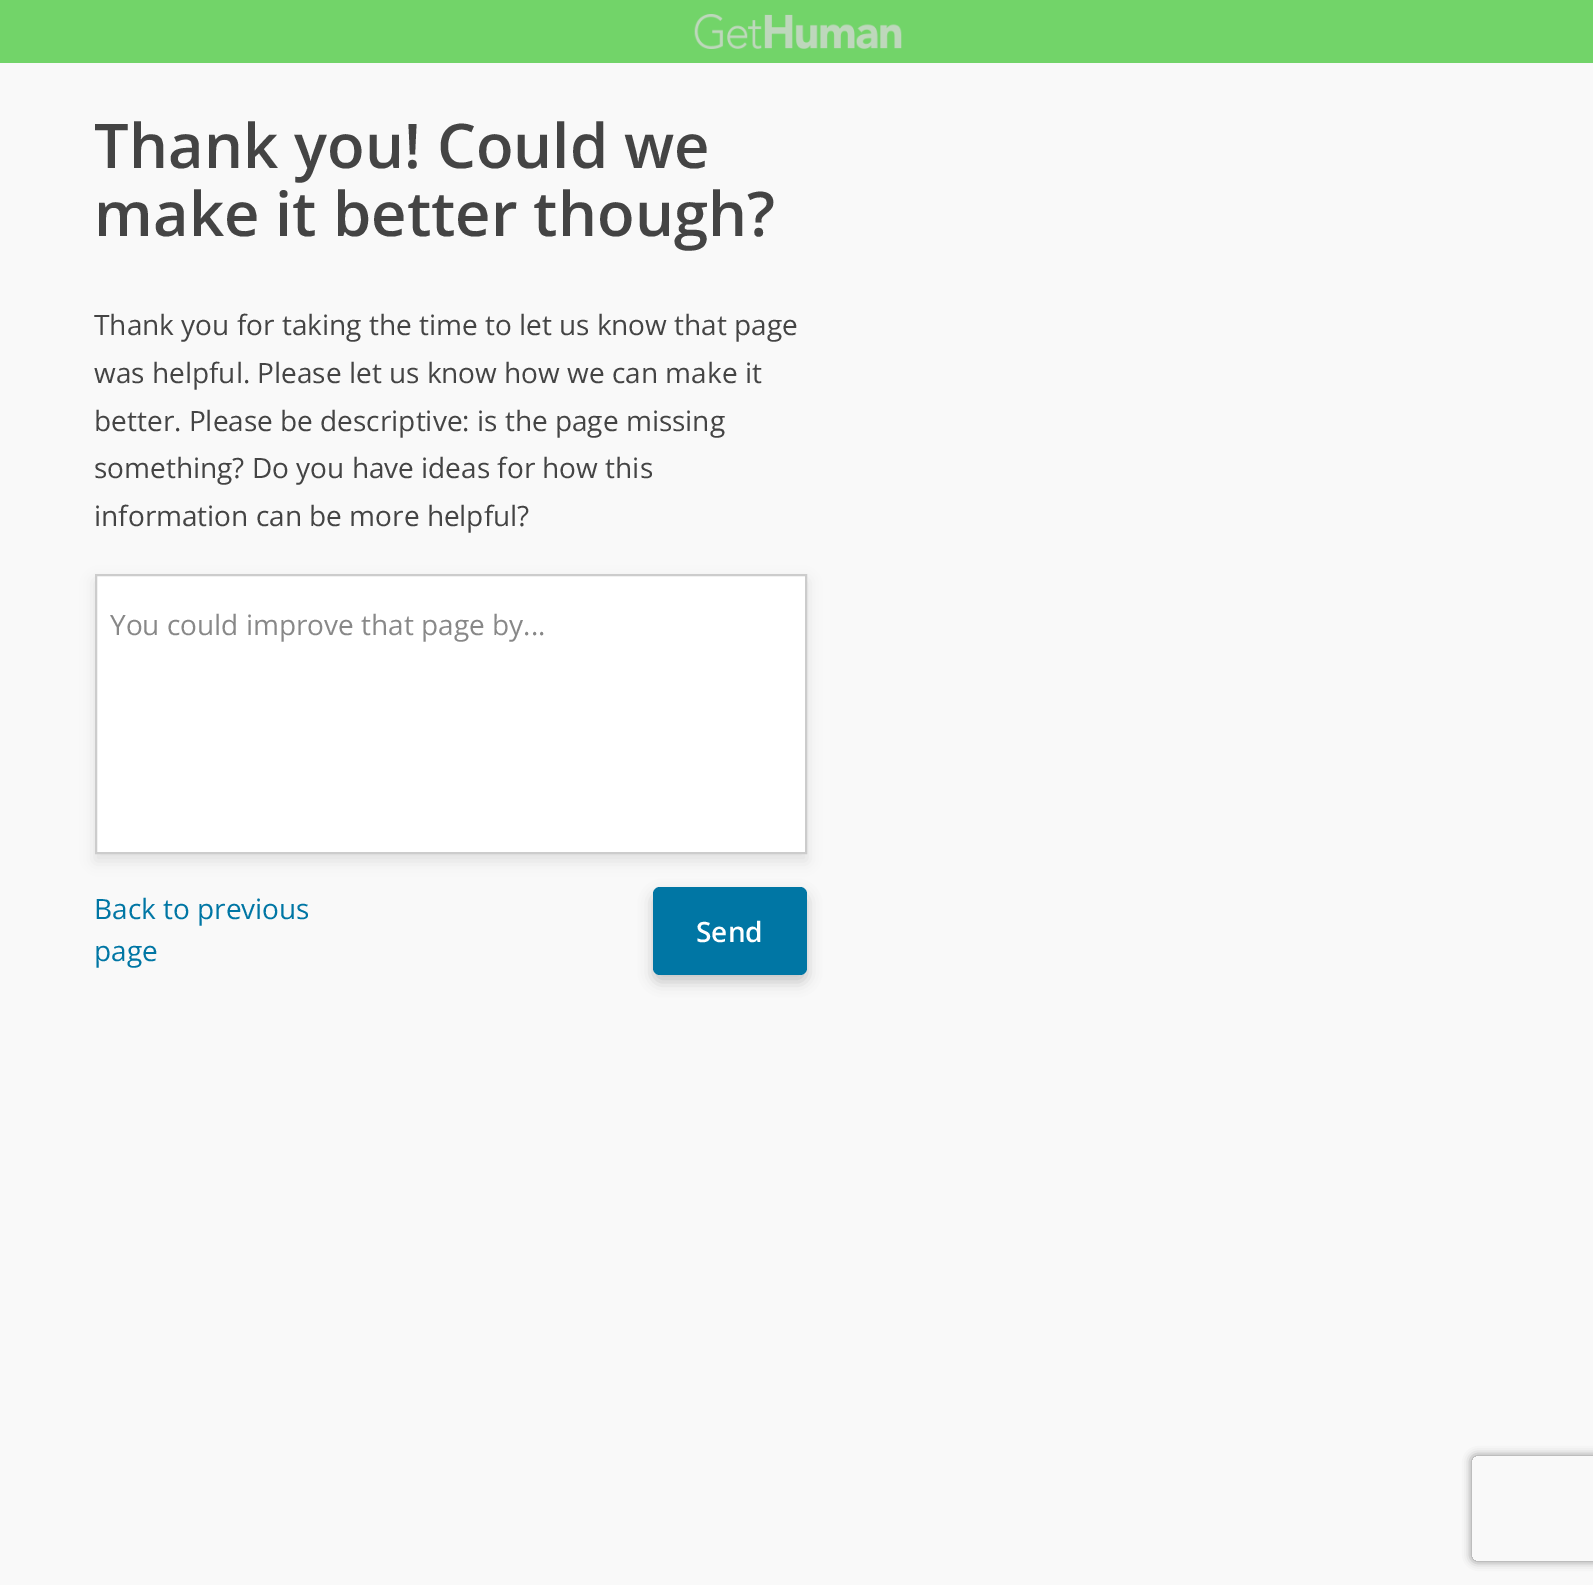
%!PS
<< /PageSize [1593 1585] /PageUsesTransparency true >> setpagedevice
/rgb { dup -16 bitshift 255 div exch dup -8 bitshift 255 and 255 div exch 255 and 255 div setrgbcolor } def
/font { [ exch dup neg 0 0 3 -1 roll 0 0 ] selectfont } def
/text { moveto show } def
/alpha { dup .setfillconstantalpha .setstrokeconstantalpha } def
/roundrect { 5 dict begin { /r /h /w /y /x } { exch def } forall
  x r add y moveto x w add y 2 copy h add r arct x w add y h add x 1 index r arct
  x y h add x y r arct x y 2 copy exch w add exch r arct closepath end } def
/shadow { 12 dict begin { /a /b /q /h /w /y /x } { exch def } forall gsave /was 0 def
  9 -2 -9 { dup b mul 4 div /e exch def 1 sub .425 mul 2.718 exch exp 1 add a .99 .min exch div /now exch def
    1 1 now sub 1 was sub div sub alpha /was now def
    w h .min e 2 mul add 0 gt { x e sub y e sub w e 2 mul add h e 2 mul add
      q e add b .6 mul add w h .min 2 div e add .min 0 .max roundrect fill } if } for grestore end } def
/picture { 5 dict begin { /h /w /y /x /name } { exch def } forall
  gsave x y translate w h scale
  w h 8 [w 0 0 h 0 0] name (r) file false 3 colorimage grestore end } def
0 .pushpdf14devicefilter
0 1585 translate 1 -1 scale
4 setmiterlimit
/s1 { /OpenSans-SemiBold 61.6 font 16#444444 rgb } def
/s2 { /OpenSans-Regular 28 font 16#444444 rgb } def
/s3 { /OpenSans-Regular 28 font 16#888888 rgb } def
/s4 { /OpenSans-Regular 28 font 16#0076A4 rgb } def
/s5 { /OpenSans-SemiBold 28 font 16#FFFFFF rgb } def
16#F9F9F9 rgb
0 0 1593 1585 rectfill
16#72D469 rgb
0 0 1593 63 rectfill
(pic1.raw) 694 14 208 35 picture
s1
(Thank you! Could we) 94 168 text
(make it better though?) 94 236 text
s2
(Thank you for taking the time to let us know that page) 94 335 text
(was helpful. Please let us know how we can make it) 94 383 text
(better. Please be descriptive: is the page missing) 94 431 text
(something? Do you have ideas for how this) 94 478 text
(information can be more helpful?) 94 526 text
16#000000 rgb
95 581 712 280 0 7 0.1 shadow
16#FFFFFF rgb
96 575 moveto 806 575 lineto 806 853 lineto 96 853 lineto closepath gsave fill grestore
16#CCCCCC rgb
2 setlinewidth
stroke
s3
(You could improve that page by...) 110 635 text
s4
(Back to previous) 94 919 text
(page) 94 961 text
16#000000 rgb
653 894 154 88 7 7 0.2 shadow
16#0076A4 rgb
653 887 154 88 7 roundrect fill
s5
(Send) 696 942 text
gsave
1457 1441 moveto 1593 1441 lineto 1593 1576 lineto 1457 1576 lineto closepath 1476 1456 moveto 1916 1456 lineto 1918 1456 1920 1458 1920 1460 curveto 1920 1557 lineto 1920 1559 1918 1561 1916 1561 curveto 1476 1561 lineto 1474 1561 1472 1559 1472 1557 curveto 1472 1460 lineto 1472 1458 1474 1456 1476 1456 curveto closepath eoclip newpath
16#808080 rgb
1472 1456 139 105 4 4.5 1 shadow
grestore
.poppdf14devicefilter showpage
